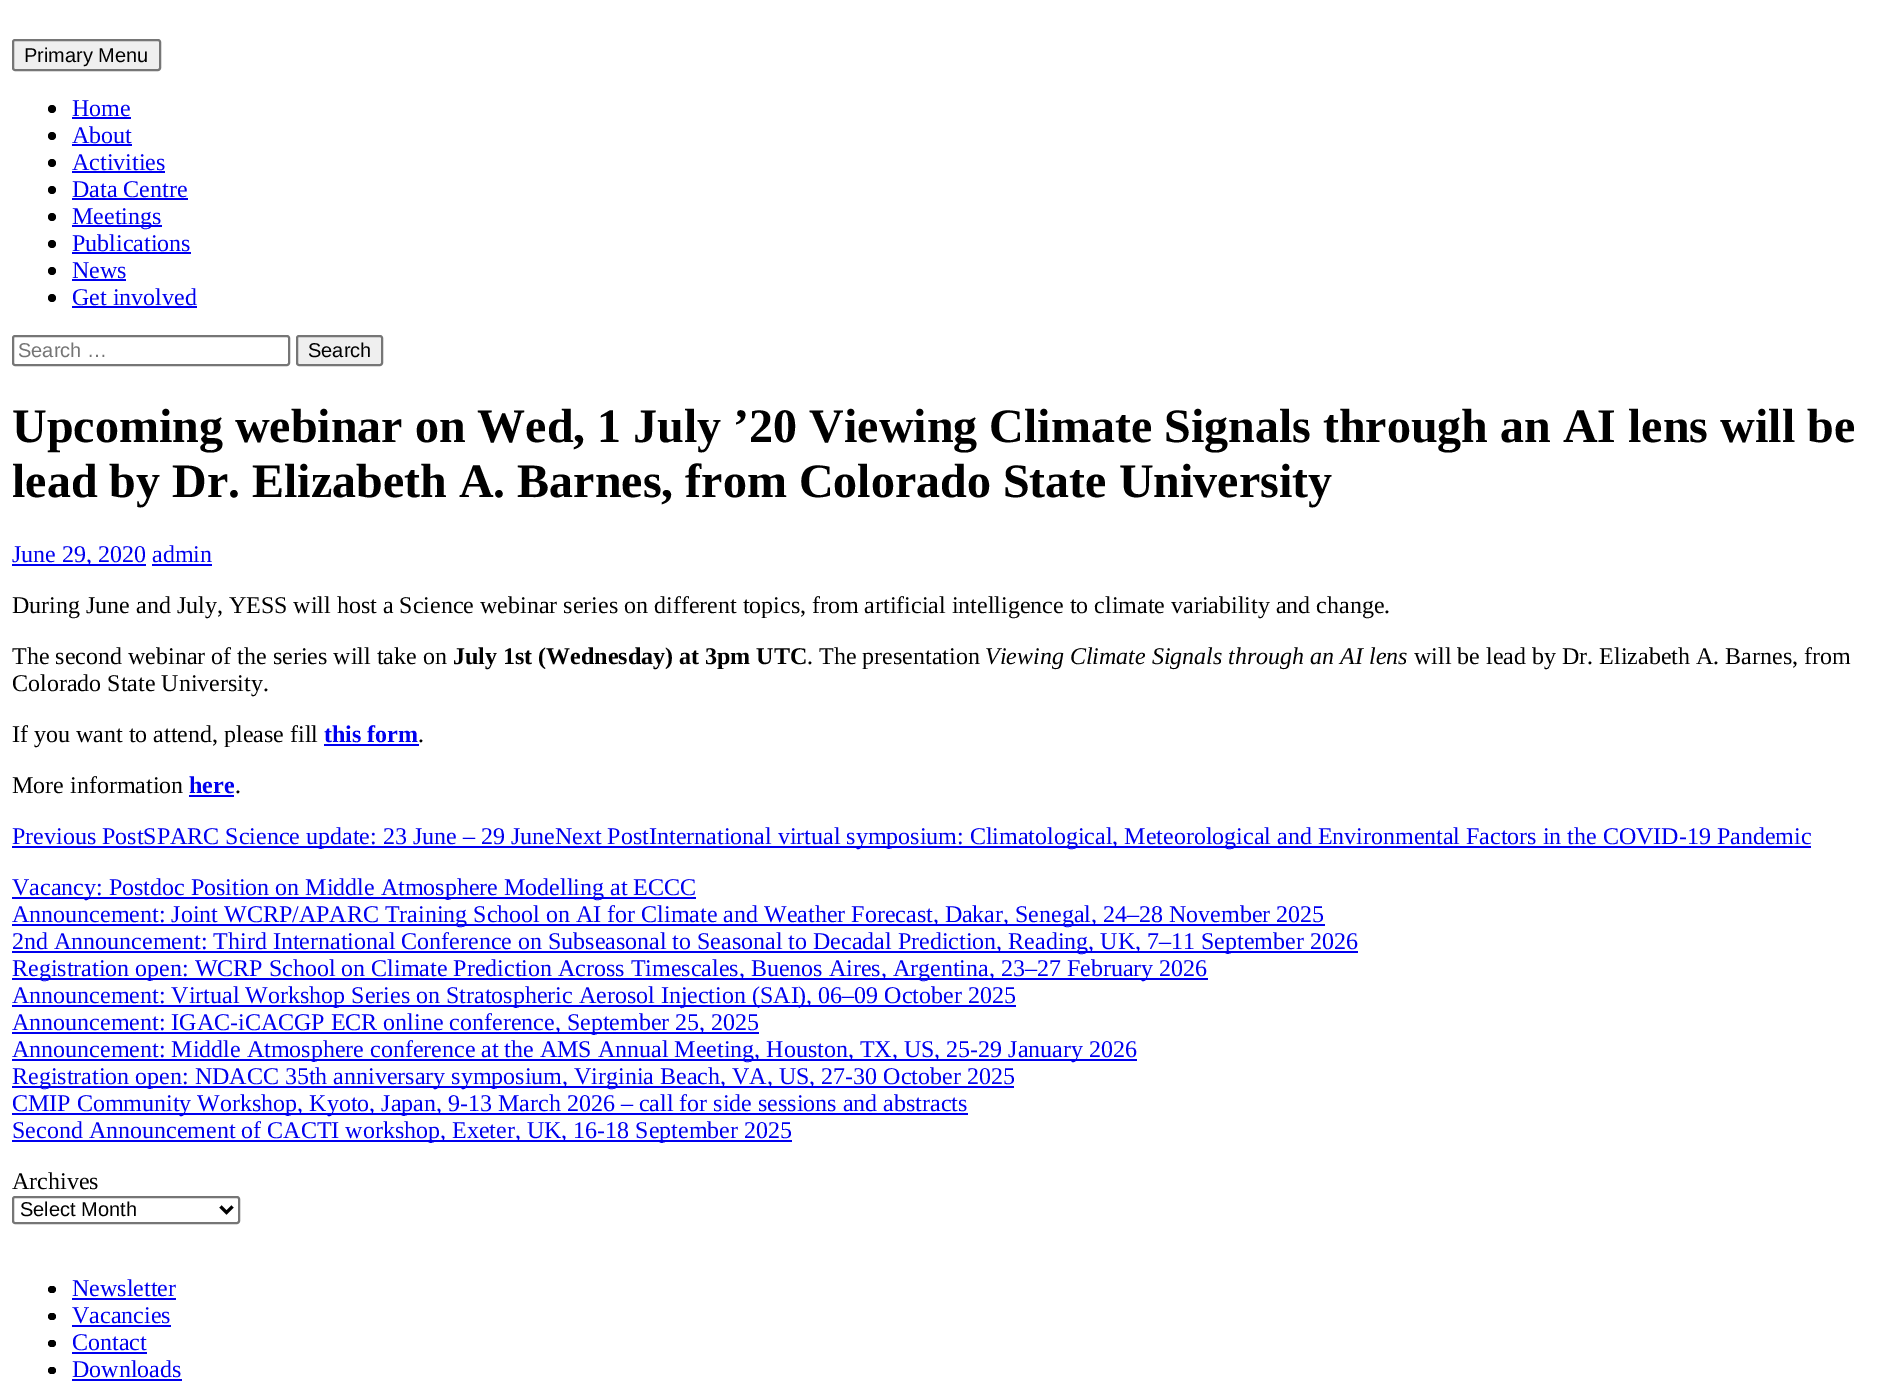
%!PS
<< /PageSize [1885 1389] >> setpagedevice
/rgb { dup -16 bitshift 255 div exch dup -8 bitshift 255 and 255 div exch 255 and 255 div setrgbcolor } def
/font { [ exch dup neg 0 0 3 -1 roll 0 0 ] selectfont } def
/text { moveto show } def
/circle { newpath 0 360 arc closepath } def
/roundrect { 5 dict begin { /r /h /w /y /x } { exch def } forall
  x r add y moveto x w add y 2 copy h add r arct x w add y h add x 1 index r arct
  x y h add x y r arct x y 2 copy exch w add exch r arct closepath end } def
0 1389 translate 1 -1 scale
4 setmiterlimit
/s1 { /LiberationSans-Regular 20 font 16#000000 rgb } def
/s2 { /LiberationSerif-Regular 24 font 16#0000EE rgb } def
/s3 { /LiberationSans-Regular 20 font 16#757575 rgb } def
/s4 { /LiberationSerif-Bold 48 font 16#000000 rgb } def
/s5 { /LiberationSerif-Regular 24 font 16#000000 rgb } def
/s6 { /LiberationSerif-Bold 24 font 16#000000 rgb } def
/s7 { /LiberationSerif-Italic 24 font 16#000000 rgb } def
/s8 { /LiberationSerif-Bold 24 font 16#0000EE rgb } def
16#FFFFFF rgb
0 0 1885 1389 rectfill
16#EFEFEF rgb
13 40 147 30 2 roundrect gsave fill grestore
16#767676 rgb
2 setlinewidth
stroke
s1
(Primary Menu) 24 62 text
52 109 4 circle fill
s2
(Home) 72 116 text
72 117 59 2 rectfill
16#000000 rgb
52 136 4 circle fill
s2
(About) 72 143 text
72 144 60 2 rectfill
16#000000 rgb
52 163 4 circle fill
s2
(Activities) 72 170 text
72 171 93 2 rectfill
16#000000 rgb
52 190 4 circle fill
s2
(Data Centre) 72 197 text
72 198 116 2 rectfill
16#000000 rgb
52 217 4 circle fill
16#0000EE rgb
72 225 90 2 rectfill
(Meetings) 72 224 text
16#000000 rgb
52 244 4 circle fill
s2
(Publications) 72 251 text
72 252 119 2 rectfill
16#000000 rgb
52 271 4 circle fill
s2
(News) 72 278 text
72 279 54 2 rectfill
16#000000 rgb
52 298 4 circle fill
s2
(Get involved) 72 305 text
72 306 125 2 rectfill
16#767676 rgb
13 336 276 29 2 roundrect stroke
s3
(Search …) 18 357 text
16#EFEFEF rgb
297 336 85 29 2 roundrect gsave fill grestore
16#767676 rgb
stroke
s1
(Search) 308 357 text
s4
(Upcoming webinar on Wed, 1 July ’20 Viewing Climate Signals through an AI lens will be) 12 442 text
(lead by Dr. Elizabeth A. Barnes, from Colorado State University) 12 497 text
16#0000EE rgb
12 564 134 2 rectfill
s2
(June 29, 2020 admin) 12 562 text
152 564 60 2 rectfill
s5
(During June and July, YESS will host a Science webinar series on different topics, from artificial intelligence to climate variability and change.) 12 613 text
(The second webinar of the series will take on) 12 664 text
s6
(July 1st \(Wednesday\) at 3pm UTC) 453 664 text
s5
(. The presentation) 807 664 text
s7
(Viewing Climate Signals through an AI lens) 985 664 text
s5
(will be lead by Dr. Elizabeth A. Barnes, from) 1414 664 text
(Colorado State University.) 12 691 text
(If you want to attend, please fill) 12 742 text
s8
(this form) 324 742 text
324 744 95 2 rectfill
s5
(.) 418 742 text
(More information) 12 793 text
s8
(here) 189 793 text
189 795 45 2 rectfill
s5
(.) 235 793 text
16#0000EE rgb
12 846 636 2 rectfill
(Previous PostSPARC Science update: 23 June – 29 JuneNext Post) 12 844 text
648 846 1163 2 rectfill
(International virtual symposium: Climatological, Meteorological and Environmental Factors in the COVID-19 Pandemic) 649 844 text
12 897 684 2 rectfill
(Vacancy: Postdoc Position on Middle Atmosphere Modelling at ECCC) 12 895 text
12 924 1313 2 rectfill
(Announcement: Joint WCRP/APARC Training School on AI for Climate and Weather Forecast, Dakar, Senegal, 24–28 November 2025) 12 922 text
12 951 1346 2 rectfill
(2nd Announcement: Third International Conference on Subseasonal to Seasonal to Decadal Prediction, Reading, UK, 7–11 September 2026) 12 949 text
12 978 1196 2 rectfill
(Registration open: WCRP School on Climate Prediction Across Timescales, Buenos Aires, Argentina, 23–27 February 2026) 12 976 text
12 1005 1004 2 rectfill
(Announcement: Virtual Workshop Series on Stratospheric Aerosol Injection \(SAI\), 06–09 October 2025) 12 1003 text
12 1032 747 2 rectfill
(Announcement: IGAC-iCACGP ECR online conference, September 25, 2025) 12 1030 text
12 1059 1125 2 rectfill
(Announcement: Middle Atmosphere conference at the AMS Annual Meeting, Houston, TX, US, 25-29 January 2026) 12 1057 text
12 1086 1002 2 rectfill
(Registration open: NDACC 35th anniversary symposium, Virginia Beach, VA, US, 27-30 October 2025) 12 1084 text
12 1113 956 2 rectfill
(CMIP Community Workshop, Kyoto, Japan, 9-13 March 2026 – call for side sessions and abstracts) 12 1111 text
12 1140 780 2 rectfill
(Second Announcement of CACTI workshop, Exeter, UK, 16-18 September 2025) 12 1138 text
s5
(Archives) 12 1189 text
16#767676 rgb
13 1197 226 26 2 roundrect stroke
16#000000 rgb
3 setlinewidth
220.5 1206.5 moveto 226.5 1212.5 lineto 232.5 1206.5 lineto stroke
s1
(Select Month) 20 1216 text
48 1286 8 7 3.5 roundrect fill
s2
(Newsletter) 72 1296 text
72 1298 104 2 rectfill
16#000000 rgb
48 1313 8 7 3.5 roundrect fill
s2
(Vacancies) 72 1323 text
72 1325 99 2 rectfill
16#000000 rgb
48 1340 8 7 3.5 roundrect fill
s2
(Contact) 72 1350 text
72 1352 75 2 rectfill
16#000000 rgb
48 1367 8 7 3.5 roundrect fill
s2
(Downloads) 72 1377 text
72 1379 110 2 rectfill
showpage
